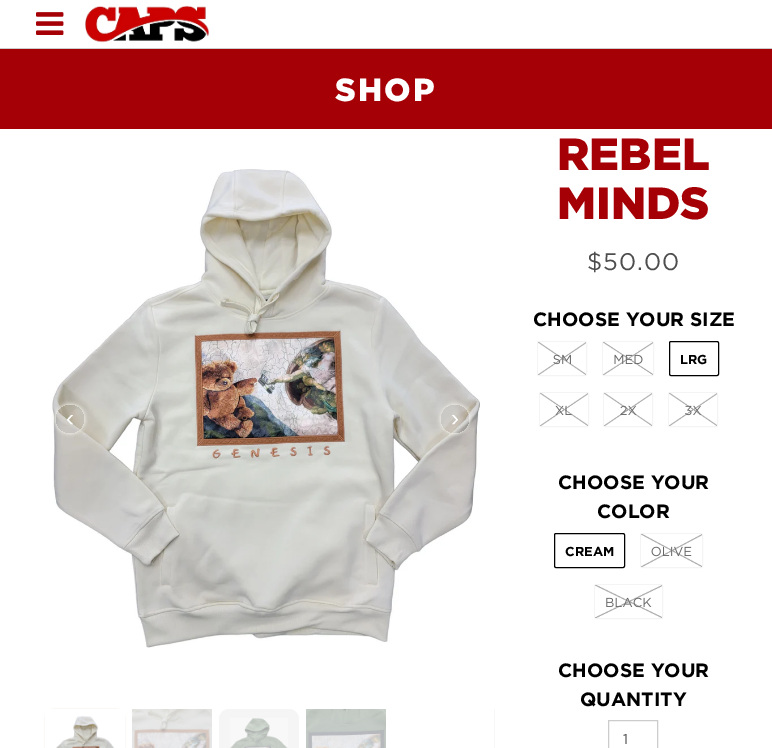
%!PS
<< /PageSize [772 748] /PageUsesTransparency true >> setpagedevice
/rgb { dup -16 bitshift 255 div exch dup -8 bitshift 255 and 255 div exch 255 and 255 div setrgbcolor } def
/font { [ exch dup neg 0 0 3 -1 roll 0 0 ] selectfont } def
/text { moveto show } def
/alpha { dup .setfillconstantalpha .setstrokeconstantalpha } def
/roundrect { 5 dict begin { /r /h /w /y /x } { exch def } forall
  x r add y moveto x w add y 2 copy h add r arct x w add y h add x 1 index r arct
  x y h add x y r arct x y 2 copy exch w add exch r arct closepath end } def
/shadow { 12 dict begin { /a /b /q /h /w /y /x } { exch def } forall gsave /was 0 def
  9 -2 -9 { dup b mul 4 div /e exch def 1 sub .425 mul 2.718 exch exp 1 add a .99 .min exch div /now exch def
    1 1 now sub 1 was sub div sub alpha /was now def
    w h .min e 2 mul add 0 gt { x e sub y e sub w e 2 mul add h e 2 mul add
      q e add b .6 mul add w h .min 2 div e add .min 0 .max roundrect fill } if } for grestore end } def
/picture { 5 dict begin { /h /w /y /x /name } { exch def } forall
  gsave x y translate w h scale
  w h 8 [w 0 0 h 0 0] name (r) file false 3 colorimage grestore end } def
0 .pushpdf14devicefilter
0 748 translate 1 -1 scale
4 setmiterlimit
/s1 { /LiberationSans-Regular 24 font 16#FFFFFF rgb } def
/s2 { /Gotham-Black 45 font 16#A50006 rgb } def
/s3 { /Gotham-Bold 19.25 font 16#000000 rgb } def
/s4 { /Gotham-Regular 13 font 16#666666 rgb } def
/s5 { /Gotham-Bold 13 font 16#000000 rgb } def
/s6 { /Gotham-Regular 14 font 16#404040 rgb } def
16#FFFFFF rgb
0 0 772 748 rectfill
16#CCCCCC rgb
0 48 772 1 rectfill
(pic1.raw) 36 12 28 23 picture
(pic2.raw) 85 5 124 38 picture
16#A50006 rgb
0 49 772 80 rectfill
/Gotham-Black 32 font
16#FFFFFF rgb
335 101 moveto 2 0 (SHOP) ashow
(pic3.raw) 52 169 428 479 picture
gsave
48 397 moveto 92 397 lineto 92 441 lineto 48 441 lineto closepath 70 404 moveto 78.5 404 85 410.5 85 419 curveto 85 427.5 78.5 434 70 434 curveto 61.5 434 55 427.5 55 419 curveto 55 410.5 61.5 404 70 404 curveto closepath eoclip newpath
16#F0EFE7 rgb
55 404 30 30 15 2 1 shadow
grestore
s1
(‹) 66 426 text
gsave
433 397 moveto 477 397 lineto 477 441 lineto 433 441 lineto closepath 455 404 moveto 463.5 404 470 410.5 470 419 curveto 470 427.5 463.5 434 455 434 curveto 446.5 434 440 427.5 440 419 curveto 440 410.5 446.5 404 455 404 curveto closepath eoclip newpath
16#F0EFE7 rgb
440 404 30 30 15 2 1 shadow
grestore
(›) 451 426 text
16#F7F7F7 rgb
494 709 1 39 rectfill
16#F0EFE7 rgb
45 709 80 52 10 1 1 shadow
(pic4.raw) 45 709 80 39 picture
16#F5F5F5 rgb
132 709 80 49 10 roundrect fill
(pic5.raw) 132 709 80 39 picture
219 709 80 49 10 roundrect fill
(pic6.raw) 230 718 58 30 picture
306 709 80 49 10 roundrect fill
(pic7.raw) 306 709 80 39 picture
s2
(REBEL) 557 170 text
(MINDS) 557 219 text
/Gotham-Regular 24 font
16#4D4D4D rgb
587 270 moveto 1 0 ($50.00) ashow
s3
(CHOOSE YOUR SIZE) 533 326 text
16#F4F4F4 rgb
537.5 341.5 49 34 1.5 roundrect stroke
s4
(SM) 553 364 text
(pic8.raw) 538 342 48 33 picture
16#F4F4F4 rgb
602.5 341.5 51 34 1.5 roundrect stroke
s4
(MED) 613 364 text
(pic9.raw) 603 342 50 33 picture
16#000000 rgb
669.5 341.5 49 34 1.5 roundrect stroke
s5
(LRG) 680 364 text
16#F4F4F4 rgb
539.5 392.5 49 34 1.5 roundrect stroke
s4
(XL) 555 415 text
(pic10.raw) 540 393 48 33 picture
16#F4F4F4 rgb
603.5 392.5 49 34 1.5 roundrect stroke
s4
(2X) 620 415 text
(pic11.raw) 604 393 48 33 picture
16#F4F4F4 rgb
668.5 392.5 49 34 1.5 roundrect stroke
s4
(3X) 684 415 text
(pic12.raw) 669 393 48 33 picture
s3
(CHOOSE YOUR) 558 489 text
(COLOR) 597 518 text
554.5 533.5 70 34 1.5 roundrect stroke
s5
(CREAM) 565 556 text
16#F4F4F4 rgb
640.5 533.5 62 34 1.5 roundrect stroke
s4
(OLIVE) 651 556 text
(pic13.raw) 641 534 61 33 picture
16#F4F4F4 rgb
594.5 584.5 68 34 1.5 roundrect stroke
s4
(BLACK) 605 607 text
(pic14.raw) 595 585 67 33 picture
s3
(CHOOSE YOUR) 558 677 text
(QUANTITY) 580 706 text
16#CCCCCC rgb
608.5 720.5 49 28 rectstroke
s6
(1) 623 744 text
.poppdf14devicefilter showpage
